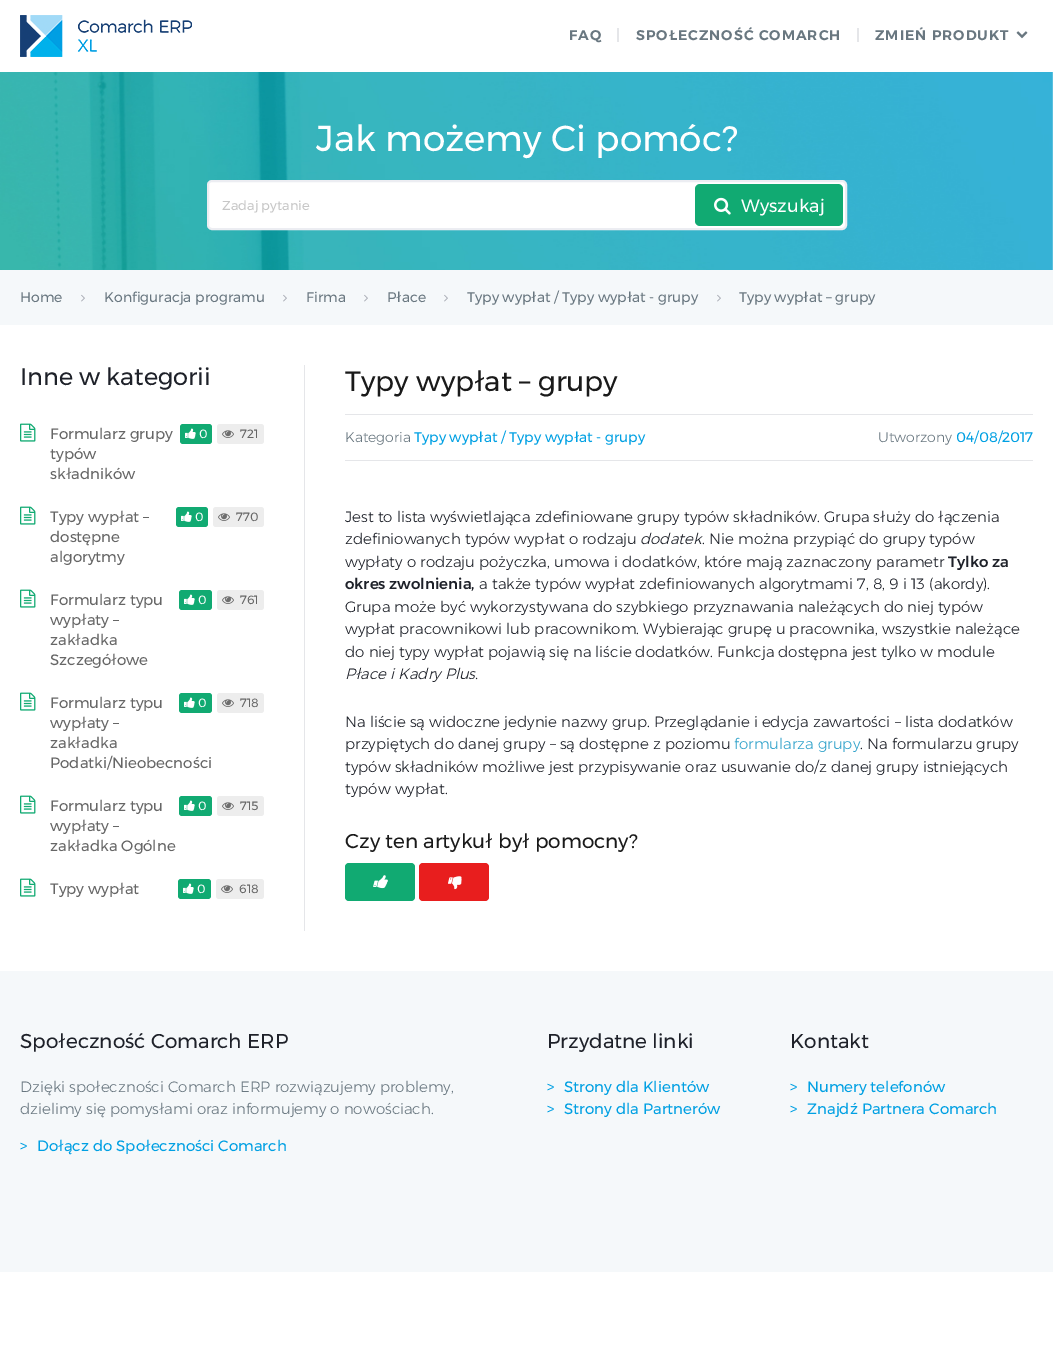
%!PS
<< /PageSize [1053 1347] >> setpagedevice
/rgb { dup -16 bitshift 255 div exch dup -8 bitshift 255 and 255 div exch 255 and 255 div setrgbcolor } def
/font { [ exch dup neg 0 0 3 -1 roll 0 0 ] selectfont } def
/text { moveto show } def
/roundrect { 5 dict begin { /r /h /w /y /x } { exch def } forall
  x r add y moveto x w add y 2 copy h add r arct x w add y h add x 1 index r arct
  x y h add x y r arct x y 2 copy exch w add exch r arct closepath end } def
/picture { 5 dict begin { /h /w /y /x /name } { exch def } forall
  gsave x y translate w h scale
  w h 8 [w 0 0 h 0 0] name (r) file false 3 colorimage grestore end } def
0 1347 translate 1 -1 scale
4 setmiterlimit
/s1 { /Montserrat-Regular 36 font 16#FFFFFF rgb } def
/s2 { /Montserrat-Regular 13 font 16#C7C7C7 rgb } def
/s3 { /Montserrat-Regular 18 font 16#FFFFFF rgb } def
/s4 { /Montserrat-Regular 14 font 16#697780 rgb } def
/s5 { /Montserrat-Regular 24 font 16#1E2129 rgb } def
/s6 { /Montserrat-Regular 15 font 16#666666 rgb } def
/s7 { /Montserrat-Regular 12 font 16#FFFFFF rgb } def
/s8 { /Montserrat-Regular 12 font 16#666666 rgb } def
/s9 { /Montserrat-Regular 28 font 16#1A1A1A rgb } def
/s10 { /Montserrat-Light 14 font 16#697780 rgb } def
/s11 { /Montserrat-Regular 14 font 16#00A0E3 rgb } def
/s12 { /Montserrat-Light 15 font 16#1E2129 rgb } def
/s13 { /Montserrat-LightItalic 15 font 16#1E2129 rgb } def
/s14 { /Montserrat-Medium 15 font 16#1E2129 rgb } def
/s15 { /Montserrat-Light 15 font 16#32A3CB rgb } def
/s16 { /Montserrat-Regular 20 font 16#1A1A1A rgb } def
/s17 { /Montserrat-Regular 20 font 16#1E2129 rgb } def
/s18 { /Montserrat-Light 15 font 16#697780 rgb } def
/s19 { /Montserrat-Regular 15 font 16#00A0E3 rgb } def
16#FFFFFF rgb
0 0 1053 1347 rectfill
(pic1.raw) 20 15 172 42 picture
/Montserrat-SemiBold 14 font
16#697780 rgb
569 40 moveto 1 0 (FAQ) ashow
16#E5E6E9 rgb
617 28 2 14 rectfill
16#697780 rgb
636 40 moveto 1 0 (SPOŁECZNOŚĆ COMARCH) ashow
16#E5E6E9 rgb
857 28 2 14 rectfill
16#697780 rgb
875 40 moveto 1 0 (ZMIEŃ PRODUKT) ashow
(pic2.raw) 1016 31 12 8 picture
(pic3.raw) 0 72 1053 198 picture
s1
(Jak możemy Ci pomóc?) 316 151 text
208 181 638 48 4 roundrect gsave fill grestore
16#ECEDF2 rgb
2 setlinewidth
stroke
s2
(Zadaj pytanie) 222 210 text
16#11AA72 rgb
695 184 148 42 5 roundrect fill
(pic4.raw) 714 197 17 18 picture
s3
(Wyszukaj) 741 212 text
16#F5F8FA rgb
0 270 1053 55 rectfill
s4
(Home) 20 302 text
(pic5.raw) 81 294 4 8 picture
(Konfiguracja programu) 104 302 text
(pic5.raw) 283 294 4 8 picture
(Firma) 306 302 text
(pic5.raw) 364 294 4 8 picture
(Płace) 387 302 text
(pic5.raw) 444 294 4 8 picture
(Typy wypłat / Typy wypłat - grupy) 467 302 text
(pic5.raw) 717 294 4 8 picture
(Typy wypłat – grupy) 739 302 text
s5
(Inne w kategorii) 20 385 text
(pic6.raw) 20 423 16 19 picture
s6
(Formularz grupy) 50 439 text
16#11AA72 rgb
180 424 32 20 3 roundrect fill
(pic7.raw) 185 428 11 11 picture
s7
(0) 199 438 text
16#EDEDED rgb
217 424 47 20 3 roundrect fill
(pic8.raw) 222 430 12 8 picture
s8
(721) 240 438 text
s6
(typów) 50 459 text
(składników) 50 479 text
(pic6.raw) 20 506 16 19 picture
(Typy wypłat –) 50 522 text
16#11AA72 rgb
176 507 32 20 3 roundrect fill
(pic7.raw) 181 511 11 11 picture
s7
(0) 195 521 text
16#EDEDED rgb
213 507 51 20 3 roundrect fill
(pic8.raw) 218 513 12 8 picture
s8
(770) 236 521 text
s6
(dostępne) 50 542 text
(algorytmy) 50 562 text
(pic6.raw) 20 589 16 19 picture
(Formularz typu) 50 605 text
16#11AA72 rgb
179 590 33 20 3 roundrect fill
(pic7.raw) 184 594 11 11 picture
s7
(0) 198 604 text
16#EDEDED rgb
217 590 47 20 3 roundrect fill
(pic8.raw) 222 596 12 8 picture
s8
(761) 240 604 text
s6
(wypłaty –) 50 625 text
(zakładka) 50 645 text
(Szczegółowe) 50 665 text
(pic6.raw) 20 692 16 19 picture
(Formularz typu) 50 708 text
16#11AA72 rgb
179 693 33 20 3 roundrect fill
(pic7.raw) 184 697 11 11 picture
s7
(0) 198 707 text
16#EDEDED rgb
217 693 47 20 3 roundrect fill
(pic8.raw) 222 699 12 8 picture
s8
(718) 240 707 text
s6
(wypłaty –) 50 728 text
(zakładka) 50 748 text
(Podatki/Nieobecności) 50 768 text
(pic6.raw) 20 795 16 19 picture
(Formularz typu) 50 811 text
16#11AA72 rgb
179 796 33 20 3 roundrect fill
(pic7.raw) 184 800 11 11 picture
s7
(0) 198 810 text
16#EDEDED rgb
217 796 47 20 3 roundrect fill
(pic8.raw) 222 802 12 8 picture
s8
(715) 240 810 text
s6
(wypłaty –) 50 831 text
(zakładka Ogólne) 50 851 text
(pic6.raw) 20 878 16 19 picture
(Typy wypłat) 50 894 text
16#11AA72 rgb
178 879 33 20 3 roundrect fill
(pic7.raw) 183 883 11 11 picture
s7
(0) 197 893 text
16#EDEDED rgb
216 879 48 20 3 roundrect fill
(pic8.raw) 221 885 12 8 picture
s8
(618) 239 893 text
16#E5E6E9 rgb
304 365 1 566 rectfill
s9
(Typy wypłat – grupy) 345 391 text
16#E5E6E9 rgb
345 414 688 1 rectfill
345 460 688 1 rectfill
s10
(Kategoria) 345 442 text
s11
(Typy wypłat / Typy wypłat - grupy) 414 442 text
s10
(Utworzony) 878 442 text
s11
(04/08/2017) 956 442 text
s12
(Jest to lista wyświetlająca zdefiniowane grupy typów składników. Grupa służy do łączenia) 345 522 text
(zdefiniowanych typów wypłat o rodzaju) 345 544 text
s13
(dodatek) 640 544 text
s12
(. Nie można przypiąć do grupy typów) 702 544 text
(wypłaty o rodzaju pożyczka, umowa i dodatków, które mają zaznaczony parametr) 345 567 text
s14
(Tylko za) 948 567 text
(okres zwolnienia,) 345 589 text
s12
(a także typów wypłat zdefiniowanych algorytmami 7, 8, 9 i 13 \(akordy\).) 479 589 text
(Grupa może być wykorzystywana do szybkiego przyznawania należących do niej typów) 345 612 text
(wypłat pracownikowi lub pracownikom. Wybierając grupę u pracownika, wszystkie należące) 345 634 text
(do niej typy wypłat pojawią się na liście dodatków. Funkcja dostępna jest tylko w module) 345 657 text
s13
(Płace i Kadry Plus.) 345 679 text
s12
(Na liście są widoczne jedynie nazwy grup. Przeglądanie i edycja zawartości – lista dodatków) 345 727 text
(przypiętych do danej grupy – są dostępne z poziomu) 345 749 text
s15
(formularza grupy) 734 749 text
s12
(. Na formularzu grupy) 860 749 text
(typów składników możliwe jest przypisywanie oraz usuwanie do/z danej grupy istniejących) 345 772 text
(typów wypłat.) 345 794 text
s16
(Czy ten artykuł był pomocny?) 345 848 text
16#11AA72 rgb
345 863 70 38 4 roundrect fill
(pic9.raw) 373 875 15 14 picture
16#E81E1E rgb
419 863 70 38 4 roundrect fill
(pic10.raw) 448 876 14 14 picture
16#F5F8FA rgb
0 971 1053 301 rectfill
s17
(Społeczność Comarch ERP) 20 1048 text
s18
(Dzięki społeczności Comarch ERP rozwiązujemy problemy,) 20 1092 text
(dzielimy się pomysłami oraz informujemy o nowościach.) 20 1114 text
s19
(>) 20 1151 text
(Dołącz do Społeczności Comarch) 37 1151 text
s17
(Przydatne linki) 547 1048 text
s19
(>) 547 1092 text
(Strony dla Klientów) 564 1092 text
(>) 547 1114 text
(Strony dla Partnerów) 564 1114 text
s17
(Kontakt) 790 1048 text
s19
(>) 790 1092 text
(Numery telefonów) 807 1092 text
(>) 790 1114 text
(Znajdź Partnera Comarch) 807 1114 text
showpage
